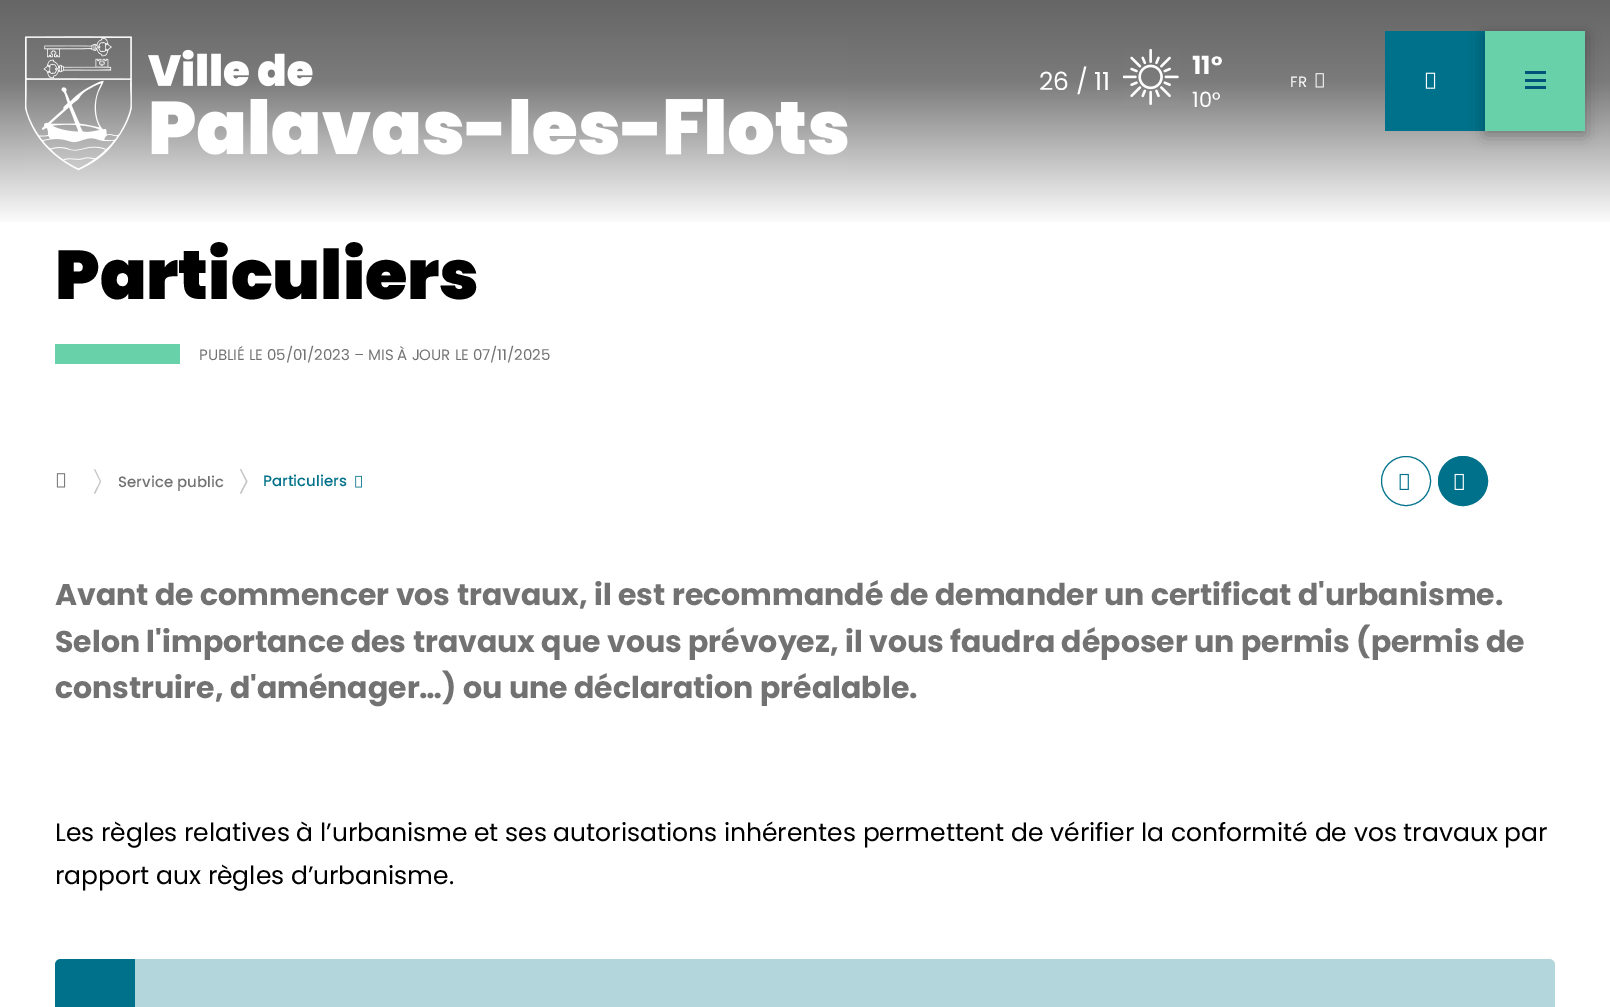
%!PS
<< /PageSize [1610 1007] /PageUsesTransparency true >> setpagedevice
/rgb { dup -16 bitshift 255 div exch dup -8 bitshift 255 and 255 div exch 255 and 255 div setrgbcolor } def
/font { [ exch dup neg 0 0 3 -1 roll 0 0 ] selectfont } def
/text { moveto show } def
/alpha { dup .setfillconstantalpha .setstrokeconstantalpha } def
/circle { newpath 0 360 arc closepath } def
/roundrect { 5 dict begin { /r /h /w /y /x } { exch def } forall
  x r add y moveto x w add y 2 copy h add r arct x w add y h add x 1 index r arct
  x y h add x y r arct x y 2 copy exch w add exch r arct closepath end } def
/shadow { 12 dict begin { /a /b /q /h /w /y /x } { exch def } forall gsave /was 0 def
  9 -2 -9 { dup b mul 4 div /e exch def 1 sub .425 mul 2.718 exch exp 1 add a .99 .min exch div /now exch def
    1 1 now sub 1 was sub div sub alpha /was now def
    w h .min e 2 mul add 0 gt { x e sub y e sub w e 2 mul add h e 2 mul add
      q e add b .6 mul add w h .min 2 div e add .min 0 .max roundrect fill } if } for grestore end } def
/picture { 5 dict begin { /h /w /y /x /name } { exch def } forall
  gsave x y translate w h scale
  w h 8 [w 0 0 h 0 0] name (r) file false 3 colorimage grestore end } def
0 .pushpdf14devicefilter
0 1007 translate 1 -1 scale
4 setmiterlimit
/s1 { /Poppins-Regular 25 font 16#FFFFFF rgb } def
/s2 { /Poppins-Bold 25 font 16#FFFFFF rgb } def
/s3 { /Poppins-Regular 21 font 16#FFFFFF rgb } def
/s4 { /Poppins-Regular 15 font 16#FFFFFF rgb } def
/s5 { /Poppins-Black 68.75 font 16#000000 rgb } def
/s6 { /Poppins-Regular 15 font 16#727272 rgb } def
/s7 { /Poppins-Medium 15 font 16#727272 rgb } def
/s8 { /Poppins-Medium 15 font 16#00718A rgb } def
/s9 { /Poppins-Bold 30 font 16#727272 rgb } def
/s10 { /Poppins-Regular 25 font 16#000000 rgb } def
16#FFFFFF rgb
0 0 1610 1007 rectfill
gsave 0 0 moveto 1610 0 lineto 1610 222 lineto 0 222 lineto closepath clip newpath
<< /ShadingType 2 /ColorSpace /DeviceRGB /Coords [805 225 805 0] /Extend [true true] /Function << /FunctionType 3 /Domain [0 1] /Functions [<< /FunctionType 2 /Domain [0 1] /C0 [1 1 1] /C1 [0.482 0.482 0.482] /N 1 >> << /FunctionType 2 /Domain [0 1] /C0 [0.482 0.482 0.482] /C1 [0.4 0.4 0.4] /N 1 >>] /Bounds [0.64] /Encode [0 1 0 1] >> >> shfill grestore
(pic1.raw) 25 36 823 135 picture
s1
(26 / 11) 1039 90 text
(pic2.raw) 1123 49 56 56 picture
s2
(11°) 1192 74 text
s3
(10°) 1192 107 text
s4
(FR) 1290 87 text
(pic3.raw) 1315 73 9 15 picture
16#00718A rgb
1385 31 100 100 rectfill
(pic4.raw) 1425 72 11 17 picture
16#000000 rgb
1485 35 100 100 0 8 0.28 shadow
16#68D1AA rgb
1485 31 100 100 rectfill
16#005378 rgb
1525 71 21 3 rectfill
1525 79 21 3 rectfill
1525 86 21 3 rectfill
s5
(Particuliers) 55 299 text
16#68D1AA rgb
55 344 125 20 rectfill
s6
(PUBLIÉ LE 05/01/2023 – MIS À JOUR LE 07/11/2025) 199 360 text
(pic5.raw) 56 473 10 15 picture
16#C5C5C5 rgb
95 494 moveto 94 493 lineto 100 481.5 lineto 94 469.5 lineto 95 469 lineto 101 481.5 lineto closepath fill
s7
(Service public) 118 487 text
16#C5C5C5 rgb
241 494 moveto 240 493 lineto 246 481.5 lineto 240 469.5 lineto 241 469 lineto 247.5 481.5 lineto closepath fill
s8
(Particuliers) 263 486 text
(pic6.raw) 355 475 7 13 picture
1406 481 24.5 circle stroke
(pic7.raw) 1399 473 10 17 picture
1463 481 24.5 circle gsave fill grestore
stroke
(pic8.raw) 1454 473 10 17 picture
s9
(Avant de commencer vos travaux, il est recommandé de demander un certificat d'urbanisme.) 55 605 text
(Selon l'importance des travaux que vous prévoyez, il vous faudra déposer un permis \(permis de) 55 652 text
(construire, d'aménager…\) ou une déclaration préalable.) 55 698 text
s10
(Les règles relatives à l’urbanisme et ses autorisations inhérentes permettent de vérifier la conformité de vos travaux par) 55 841 text
(rapport aux règles d’urbanisme.) 55 884 text
16#B3D5DC rgb
55 959 1500 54 6 roundrect fill
16#00718A rgb
61 959 moveto 135 959 lineto 135 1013 lineto 61 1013 lineto 57.5 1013 55 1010.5 55 1007 curveto 55 965 lineto 55 961.5 57.5 959 61 959 curveto closepath fill
.poppdf14devicefilter showpage
